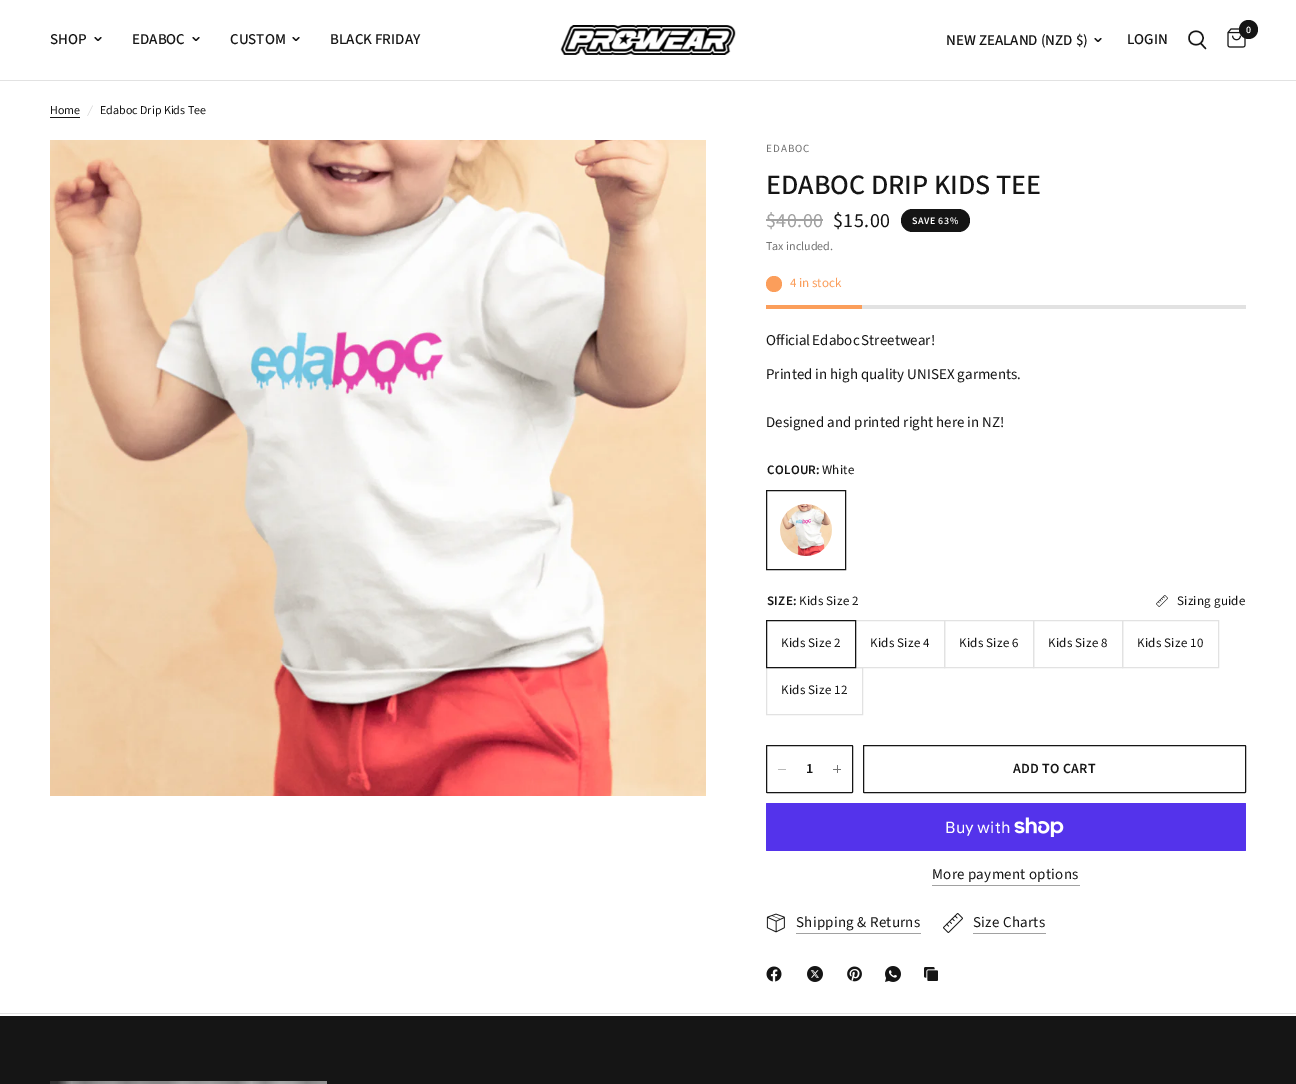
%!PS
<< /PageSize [1296 1084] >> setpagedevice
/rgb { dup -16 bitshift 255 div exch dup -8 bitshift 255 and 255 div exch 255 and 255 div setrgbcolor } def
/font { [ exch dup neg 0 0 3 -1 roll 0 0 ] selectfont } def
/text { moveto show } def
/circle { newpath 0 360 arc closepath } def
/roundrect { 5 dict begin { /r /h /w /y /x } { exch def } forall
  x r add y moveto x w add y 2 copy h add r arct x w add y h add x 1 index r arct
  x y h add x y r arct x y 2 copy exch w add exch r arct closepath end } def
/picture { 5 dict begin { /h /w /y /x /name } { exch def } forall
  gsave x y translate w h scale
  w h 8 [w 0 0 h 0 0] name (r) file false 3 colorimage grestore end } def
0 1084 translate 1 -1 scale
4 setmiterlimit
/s1 { /SourceSansPro-Medium 15 font 16#151515 rgb } def
/s2 { /SourceSansPro-SemiBold 10 font 16#FFFFFF rgb } def
/s3 { /SourceSansPro-Regular 12 font 16#151515 rgb } def
/s4 { /SourceSansPro-Italic 12 font 16#D0D0D0 rgb } def
/s5 { /SourceSansPro-Medium 28 font 16#151515 rgb } def
/s6 { /SourceSansPro-Regular 12 font 16#737373 rgb } def
/s7 { /SourceSansPro-Regular 13 font 16#FB9E5B rgb } def
/s8 { /SourceSansPro-Regular 15 font 16#151515 rgb } def
/s9 { /SourceSansPro-SemiBold 14 font 16#151515 rgb } def
/s10 { /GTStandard-Regular 16 font 16#FFFFFF rgb } def
16#FFFFFF rgb
0 0 1296 1084 rectfill
16#E2E2E2 rgb
0 80 1296 1 rectfill
s1
(SHOP) 50 44 text
1.1 setlinewidth
1 setlinecap
1 setlinejoin
101 37.5 moveto 98 40.5 lineto 95 37.5 lineto stroke
(EDABOC) 132 44 text
199 37.5 moveto 196 40.5 lineto 193 37.5 lineto stroke
(CUSTOM) 230 44 text
299 37.5 moveto 296 40.5 lineto 293 37.5 lineto stroke
(BLACK FRIDAY) 330 44 text
(pic1.raw) 560 25 176 30 picture
(NEW ZEALAND \(NZD $\)) 946 45 text
1101 38.5 moveto 1098 41.5 lineto 1095 38.5 lineto stroke
(LOGIN) 1127 44 text
1.4 setlinewidth
1201 43.5 moveto 1205.5 48.5 lineto 1203 38 moveto 1203 47 1189 47 1189 38 curveto 1189 29 1203 29 1203 38 curveto closepath stroke
(pic2.raw) 1227 28 19 20 picture
1248.5 29.5 9.5 circle fill
s2
(0) 1246 33 text
s3
(Home) 50 114 text
50 117 30 1 rectfill
s4
(/) 88 114 text
s3
(Edaboc Drip Kids Tee) 100 114 text
(pic3.raw) 50 140 656 656 picture
/SourceSansPro-Regular 11 font
16#737373 rgb
766 152 moveto 1 0 (EDABOC) ashow
s5
(EDABOC DRIP KIDS TEE) 766 194 text
/SourceSansPro-Regular 20 font
16#A1A1A1 rgb
766 227 moveto 0.5 0 ($40.00) ashow
766 219 57 2 rectfill
16#151515 rgb
833 227 moveto 0.5 0 ($15.00) ashow
901 209 69 23 11.5 roundrect fill
/SourceSansPro-SemiBold 10 font
16#FFFFFF rgb
912 224 moveto 0.5 0 (SAVE 63%) ashow
s6
(Tax included.) 766 250 text
16#FB9E5B rgb
774 284 8 circle fill
s7
(4 in stock) 790 287 text
16#E2E2E2 rgb
862 305 384 4 rectfill
16#FB9E5B rgb
766 305 96 4 rectfill
/SourceSansPro-Regular 15 font
16#151515 rgb
766 345 moveto -1 0 32 (Official Edaboc Streetwear!) widthshow
(Printed in high quality UNISEX garments.) 766 379 text
(Designed and printed right here in NZ!) 766 427 text
/SourceSansPro-SemiBold 13 font
767 474 moveto 0.25 0 (COLOUR:) ashow
/SourceSansPro-Regular 13 font
822 474 moveto 0.25 0 (White) ashow
1 setlinewidth
0 setlinecap
0 setlinejoin
766.5 490.5 79 79 rectstroke
(pic4.raw) 780 504 52 52 picture
/SourceSansPro-SemiBold 13 font
767 605 moveto 0.25 0 (SIZE:) ashow
/SourceSansPro-Regular 13 font
799 605 moveto 0.25 0 (Kids Size 2) ashow
(pic5.raw) 1156 595 12 12 picture
1177 605 moveto 0.25 0 (Sizing guide) ashow
16#E2E2E2 rgb
855.5 620.5 89 47 rectstroke
766.5 667.5 96 47 rectstroke
16#151515 rgb
766.5 620.5 89 47 rectstroke
781 647 moveto 0.25 0 (Kids Size 2) ashow
870 647 moveto 0.25 0 (Kids Size 4) ashow
16#E2E2E2 rgb
944.5 620.5 89 47 rectstroke
16#151515 rgb
959 647 moveto 0.25 0 (Kids Size 6) ashow
16#E2E2E2 rgb
1033.5 620.5 89 47 rectstroke
16#151515 rgb
1048 647 moveto 0.25 0 (Kids Size 8) ashow
16#E2E2E2 rgb
1122.5 620.5 96 47 rectstroke
16#151515 rgb
1137 647 moveto 0.25 0 (Kids Size 10) ashow
781 694 moveto 0.25 0 (Kids Size 12) ashow
766.5 745.5 86 47 0.5 roundrect stroke
16#B9B9B9 rgb
778 769 8 1 rectfill
s9
(1) 806 773 text
16#737373 rgb
837 765 1 8 rectfill
833 769 8 1 rectfill
16#151515 rgb
863.5 745.5 382 47 0.5 roundrect stroke
1013 773 moveto 0.25 0 (ADD TO CART) ashow
16#5433EB rgb
766 803 480 48 1 roundrect fill
s10
(Buy with) 945 833 text
(pic6.raw) 1014 817 50 20 picture
/SourceSansPro-Regular 15 font
16#151515 rgb
932 879 moveto 0.25 0 (More payment options) ashow
16#A1A1A1 rgb
932 885 148 1 rectfill
(pic7.raw) 766 913 19 20 picture
16#151515 rgb
796 927 moveto 0.25 0 (Shipping & Returns) ashow
16#A1A1A1 rgb
796 933 125 1 rectfill
(pic8.raw) 943 913 20 20 picture
16#151515 rgb
973 927 moveto 0.25 0 (Size Charts) ashow
16#A1A1A1 rgb
973 933 73 1 rectfill
(pic9.raw) 766 966 16 16 picture
(pic10.raw) 807 966 16 16 picture
(pic11.raw) 847 966 15 16 picture
(pic12.raw) 885 966 16 16 picture
(pic13.raw) 924 967 14 14 picture
16#E2E2E2 rgb
0 1013 1296 1 rectfill
16#151515 rgb
0 1016 1296 68 rectfill
(pic14.raw) 50 1081 277 3 picture
showpage
